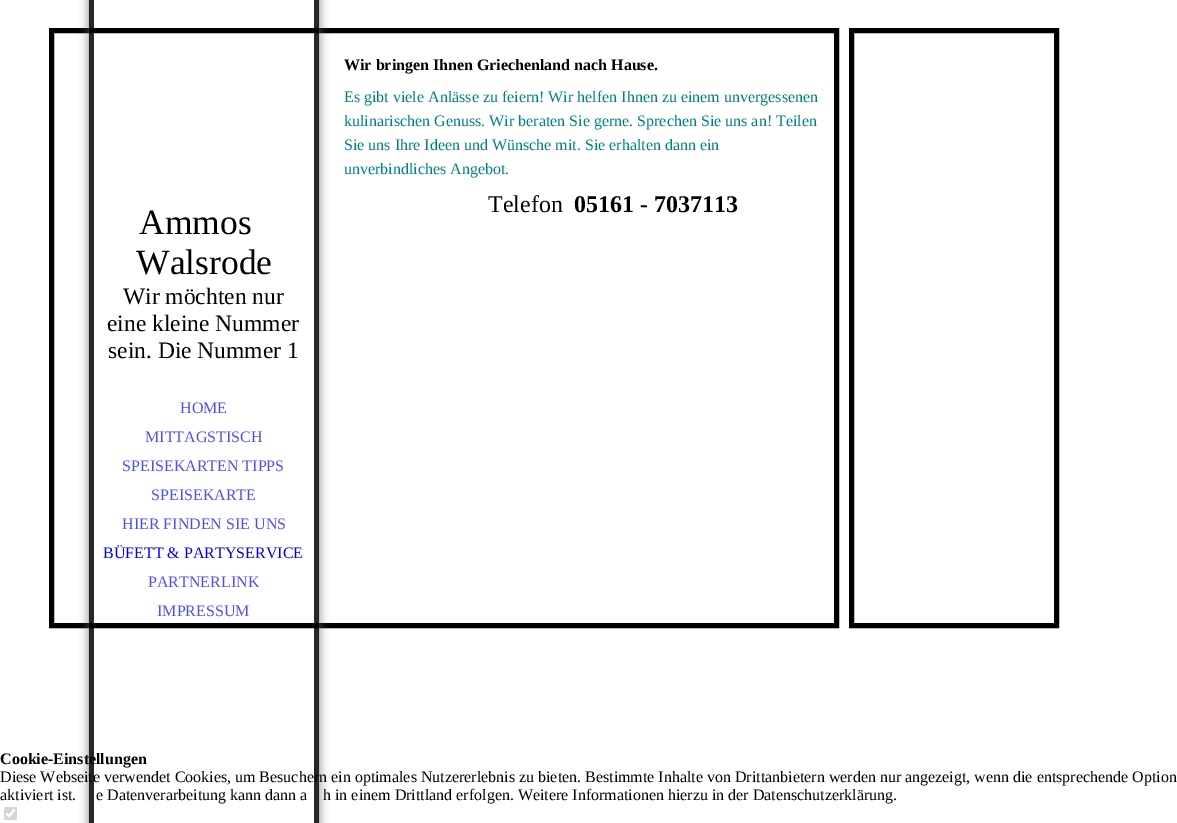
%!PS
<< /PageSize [1177 823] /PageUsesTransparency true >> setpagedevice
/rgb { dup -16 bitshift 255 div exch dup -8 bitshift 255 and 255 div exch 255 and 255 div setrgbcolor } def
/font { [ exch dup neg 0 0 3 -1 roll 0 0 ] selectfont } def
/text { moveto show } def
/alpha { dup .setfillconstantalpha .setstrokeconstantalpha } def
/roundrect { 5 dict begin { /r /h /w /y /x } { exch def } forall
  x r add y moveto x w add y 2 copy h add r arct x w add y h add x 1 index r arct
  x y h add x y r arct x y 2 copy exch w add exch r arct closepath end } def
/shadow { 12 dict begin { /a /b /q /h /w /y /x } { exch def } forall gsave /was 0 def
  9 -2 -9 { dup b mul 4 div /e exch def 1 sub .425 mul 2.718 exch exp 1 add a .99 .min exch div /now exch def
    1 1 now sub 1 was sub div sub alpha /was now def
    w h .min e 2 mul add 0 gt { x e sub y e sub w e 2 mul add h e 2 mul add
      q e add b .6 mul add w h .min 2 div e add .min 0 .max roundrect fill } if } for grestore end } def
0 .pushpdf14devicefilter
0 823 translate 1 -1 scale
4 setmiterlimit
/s1 { /LiberationSerif-Regular 16 font 16#000000 rgb } def
/s2 { /LiberationSerif-Bold 16 font 16#000000 rgb } def
/s3 { /LiberationSerif-Regular 16 font 16#008080 rgb } def
/s4 { /LiberationSerif-Regular 24 font 16#000000 rgb } def
/s5 { /LiberationSerif-Bold 24 font 16#000000 rgb } def
/s6 { /LiberationSerif-Regular 35.5 font 16#000000 rgb } def
/s7 { /LiberationSerif-Regular 23.5 font 16#000000 rgb } def
/s8 { /LiberationSerif-Regular 16 font 16#4D4DF3 rgb } def
/s9 { /LiberationSerif-Regular 16 font 16#0000EE rgb } def
16#FFFFFF rgb
0 0 1177 823 rectfill
16#000000 rgb
5 setlinewidth
51.5 30.5 785 595 rectstroke
gsave
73 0 moveto 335 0 lineto 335 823 lineto 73 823 lineto closepath 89 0 moveto 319 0 lineto 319 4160 lineto 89 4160 lineto closepath eoclip newpath
16#666666 rgb
89 0 230 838 0 5 0.85 shadow
grestore
s1
(Diese Webseite verwendet Cookies, um Besuchern ein optimales Nutzererlebnis zu bieten. Bestimmte Inhalte von Drittanbietern werden nur angezeigt, wenn die entsprechende Option) 0 782 text
0.85 alpha
314 0 5 823 rectfill
1 alpha
s2
(Cookie-Einstellungen) 0 764 text
0.85 alpha
89 0 5 823 rectfill
1 alpha
(Wir bringen Ihnen Griechenland nach Hause.) 344 70 text
s3
(Es gibt viele Anlässe zu feiern! Wir helfen Ihnen zu einem unvergessenen) 344 102 text
(kulinarischen Genuss. Wir beraten Sie gerne. Sprechen Sie uns an! Teilen) 344 126 text
(Sie uns Ihre Ideen und Wünsche mit. Sie erhalten dann ein) 344 150 text
(unverbindliches Angebot.) 344 174 text
s4
(Telefon) 488 212 text
s5
(05161 - 7037113) 574 212 text
851.5 30.5 205 595 rectstroke
s6
(Ammos) 139 234 text
(Walsrode) 136 274 text
s7
(Wir möchten nur) 123 304 text
(eine kleine Nummer) 107 331 text
(sein. Die Nummer 1) 108 358 text
s8
(HOME) 180 413 text
(MITTAGSTISCH) 145 442 text
(SPEISEKARTEN TIPPS) 122 471 text
(SPEISEKARTE) 151 500 text
(HIER FINDEN SIE UNS) 122 529 text
s9
(BÜFETT & PARTYSERVICE) 103 558 text
s8
(PARTNERLINK) 148 587 text
(IMPRESSUM) 157 616 text
s1
(aktiviert ist.) 0 800 text
(e Datenverarbeitung kann dann a) 96 800 text
(h in einem Drittland erfolgen. Weitere Informationen hierzu in der Datenschutzerklärung.) 323 800 text
16#D6D6D6 rgb
4 807 13 13 2 roundrect fill
16#FFFFFF rgb
2.1 setlinewidth
6.5 813.5 moveto 9 816 lineto 14.5 809.5 lineto stroke
.poppdf14devicefilter showpage
